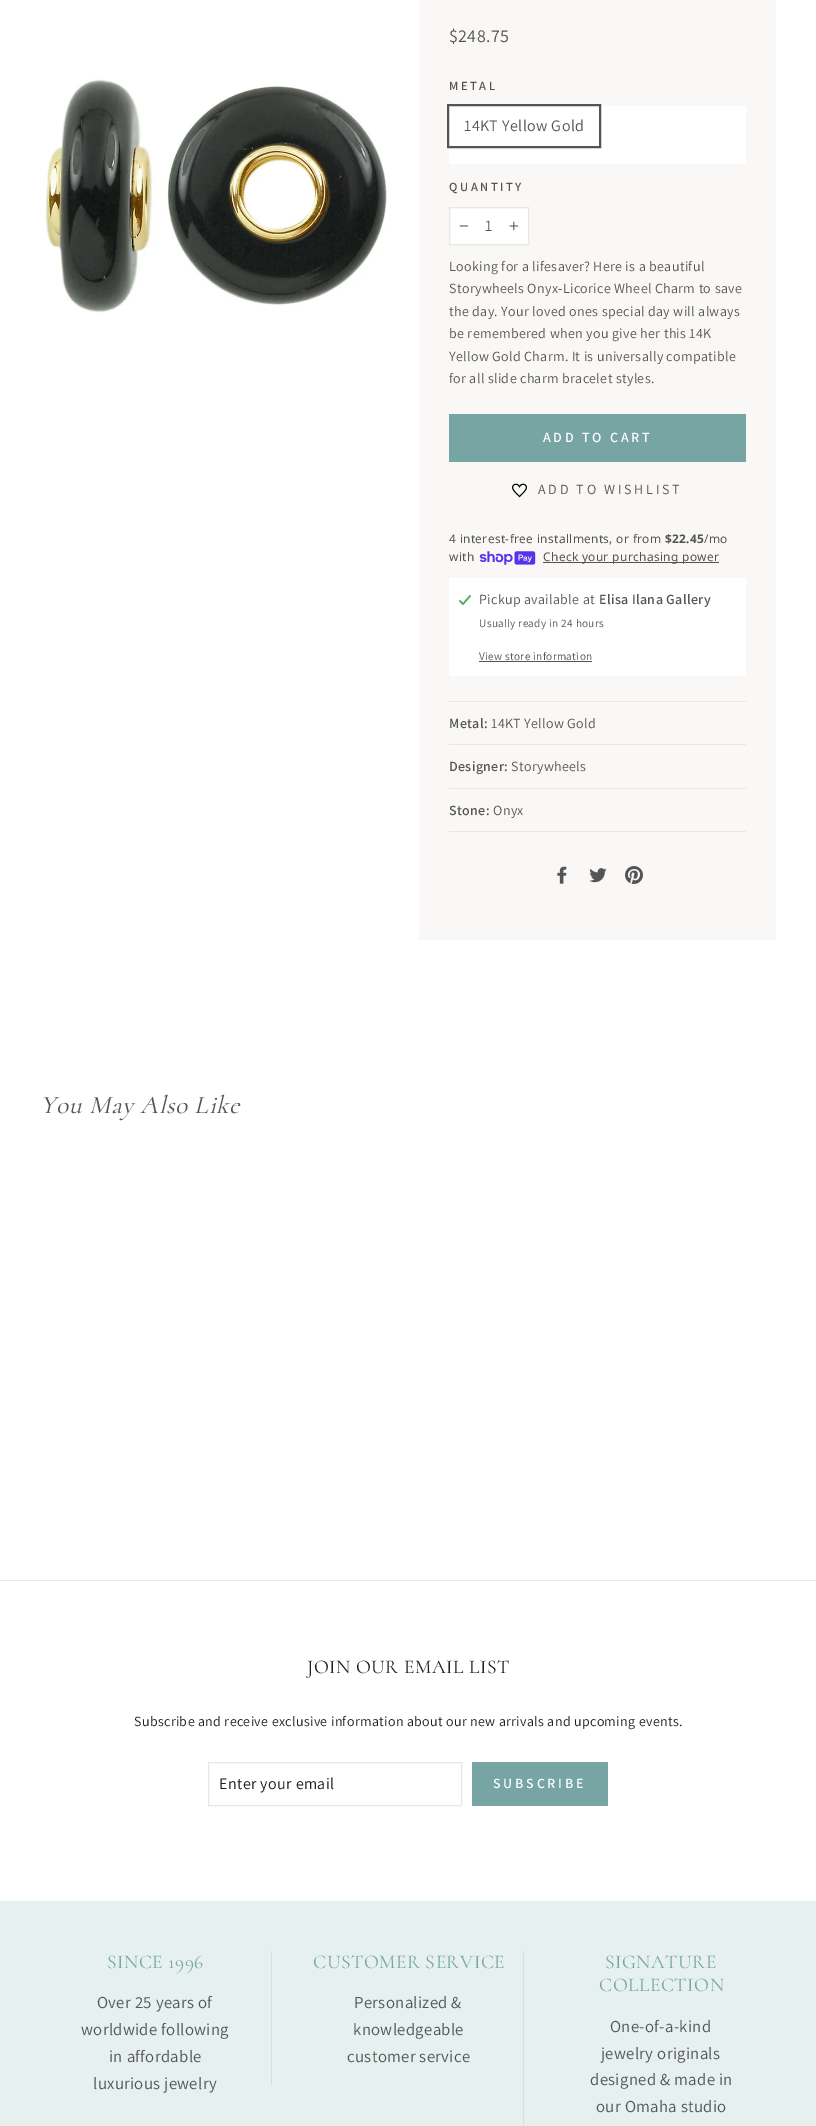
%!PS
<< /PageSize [816 2126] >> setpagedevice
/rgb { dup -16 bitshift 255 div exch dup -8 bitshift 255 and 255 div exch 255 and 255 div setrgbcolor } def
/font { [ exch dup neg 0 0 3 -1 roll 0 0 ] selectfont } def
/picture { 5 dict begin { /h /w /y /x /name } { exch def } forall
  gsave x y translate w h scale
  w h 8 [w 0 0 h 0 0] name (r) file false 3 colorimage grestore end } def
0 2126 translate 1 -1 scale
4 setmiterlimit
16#FFFFFF rgb
0 0 816 2126 rectfill
(pic1.raw) 45 79 344 234 picture
16#F9F8F6 rgb
419 0 357 940 rectfill
/Assistant-Regular 18 font
16#545454 rgb
449 42 moveto 0.35 0 ($248.75) ashow
/Assistant-SemiBold 12.5 font
449 90 moveto 2.5 0 (METAL) ashow
16#FFFFFF rgb
449 106 297 58 rectfill
16#545454 rgb
2 setlinewidth
448 105 152 42 rectstroke
/Assistant-Regular 16 font
464 131 moveto 0.4 0 (14KT Yellow Gold) ashow
/Assistant-SemiBold 12.5 font
449 191 moveto 2.5 0 (QUANTITY) ashow
16#FFFFFF rgb
449.5 207.5 moveto 528.5 207.5 lineto 528.5 244.5 lineto 449.5 244.5 lineto closepath gsave fill grestore
16#E8E8E1 rgb
1 setlinewidth
stroke
(pic2.raw) 459 225 10 2 picture
/Assistant-Regular 16 font
16#545454 rgb
485 231 moveto 0.4 0 (1) ashow
(pic3.raw) 509 221 10 10 picture
/Assistant-Regular 14 font
449 271 moveto 0.35 0 (Looking for a lifesaver? Here is a beautiful) ashow
449 293 moveto 0.35 0 (Storywheels Onyx-Licorice Wheel Charm to save) ashow
449 316 moveto 0.35 0 (the day. Your loved ones special day will always) ashow
449 338 moveto 0.35 0 (be remembered when you give her this 14K) ashow
449 361 moveto 0.35 0 (Yellow Gold Charm. It is universally compatible) ashow
449 383 moveto 0.35 0 (for all slide charm bracelet styles.) ashow
16#76A5A4 rgb
449 414 297 48 rectfill
/Assistant-SemiBold 14 font
16#FFFFFF rgb
543 442 moveto 2.75 0 (ADD TO CART) ashow
(pic4.raw) 512 483 15 15 picture
/Assistant-Regular 14 font
16#545454 rgb
538 494 moveto 2.75 0 (ADD TO WISHLIST) ashow
/NotoSans-Regular 11.9 font
449 543 moveto 0.35 0 (4 interest-free installments, or from) ashow
/NotoSans-Bold 11.9 font
665 543 moveto 0.35 0 ($22.45) ashow
/NotoSans-Regular 11.9 font
704 543 moveto 0.35 0 (/mo) ashow
449 561 moveto 0.35 0 (with) ashow
(pic5.raw) 479 551 57 14 picture
543 562 176 1 rectfill
543 561 moveto 0.35 0 (Check your purchasing power) ashow
16#FFFFFF rgb
449 578 297 98 rectfill
(pic6.raw) 459 595 12 10 picture
/Assistant-Regular 14 font
16#545454 rgb
479 604 moveto 0.35 0 (Pickup available at) ashow
/Assistant-SemiBold 14 font
599 604 moveto 0.35 0 (Elisa Ilana Gallery) ashow
/Assistant-Regular 11.25 font
479 627 moveto 0.35 0 (Usually ready in 24 hours) ashow
479 660 moveto 0.35 0 (View store information) ashow
479 661 113 1 rectfill
16#E8E8E1 rgb
449 701 297 1 rectfill
/Assistant-SemiBold 14 font
16#545454 rgb
449 728 moveto 0.35 0 (Metal:) ashow
/Assistant-Regular 14 font
491 728 moveto 0.35 0 (14KT Yellow Gold) ashow
16#E8E8E1 rgb
449 744 297 1 rectfill
/Assistant-SemiBold 14 font
16#545454 rgb
449 771 moveto 0.35 0 (Designer:) ashow
/Assistant-Regular 14 font
511 771 moveto 0.35 0 (Storywheels) ashow
16#E8E8E1 rgb
449 788 297 1 rectfill
/Assistant-SemiBold 14 font
16#545454 rgb
449 815 moveto 0.35 0 (Stone:) ashow
/Assistant-Regular 14 font
493 815 moveto 0.35 0 (Onyx) ashow
16#E8E8E1 rgb
449 831 297 1 rectfill
(pic7.raw) 557 866 10 18 picture
(pic8.raw) 589 868 18 15 picture
(pic9.raw) 625 866 18 18 picture
/Cormorant-Italic 25.5 font
16#545454 rgb
40 1113 moveto 0.6 0 (You May Also Like) ashow
16#E8E8E1 rgb
0 1580 816 1 rectfill
/Cormorant-Regular 19.5 font
16#1C1D1D rgb
307 1673 moveto 0.5 0 (JOIN OUR EMAIL LIST) ashow
/Assistant-Regular 14 font
134 1726 moveto 0.35 0 (Subscribe and receive exclusive information about our new arrivals and upcoming events.) ashow
16#E8E8E1 rgb
208.5 1762.5 253 43 rectstroke
/Assistant-Regular 16 font
16#1C1D1D rgb
219 1789 moveto 0.4 0 (Enter your email) ashow
16#76A5A4 rgb
472 1762 136 44 rectfill
/Assistant-SemiBold 14 font
16#FFFFFF rgb
493 1788 moveto 2.75 0 (SUBSCRIBE) ashow
16#E6F1EF rgb
0 1901 816 225 rectfill
/Cormorant-Regular 19.5 font
16#76A5A4 rgb
107 1968 moveto 0.5 0 (SINCE 1996) ashow
/Assistant-Regular 16.75 font
16#545454 rgb
97 2008 moveto 0.35 0 (Over 25 years of) ashow
81 2035 moveto 0.35 0 (worldwide following) ashow
109 2062 moveto 0.35 0 (in affordable) ashow
93 2089 moveto 0.35 0 (luxurious jewelry) ashow
16#D2E2E1 rgb
271 1951 1 134 rectfill
/Cormorant-Regular 19.5 font
16#76A5A4 rgb
313 1968 moveto 0.5 0 (CUSTOMER SERVICE) ashow
/Assistant-Regular 16.75 font
16#545454 rgb
354 2008 moveto 0.35 0 (Personalized &) ashow
353 2035 moveto 0.35 0 (knowledgeable) ashow
347 2062 moveto 0.35 0 (customer service) ashow
16#D2E2E1 rgb
523 1951 1 175 rectfill
/Cormorant-Regular 19.5 font
16#76A5A4 rgb
605 1968 moveto 0.5 0 (SIGNATURE) ashow
599 1991 moveto 0.5 0 (COLLECTION) ashow
/Assistant-Regular 16.75 font
16#545454 rgb
610 2032 moveto 0.35 0 (One-of-a-kind) ashow
601 2059 moveto 0.35 0 (jewelry originals) ashow
590 2085 moveto 0.35 0 (designed & made in) ashow
596 2112 moveto 0.35 0 (our Omaha studio) ashow
showpage
